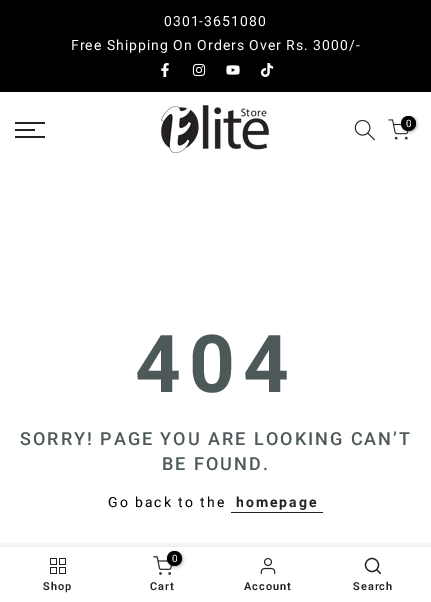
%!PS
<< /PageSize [431 602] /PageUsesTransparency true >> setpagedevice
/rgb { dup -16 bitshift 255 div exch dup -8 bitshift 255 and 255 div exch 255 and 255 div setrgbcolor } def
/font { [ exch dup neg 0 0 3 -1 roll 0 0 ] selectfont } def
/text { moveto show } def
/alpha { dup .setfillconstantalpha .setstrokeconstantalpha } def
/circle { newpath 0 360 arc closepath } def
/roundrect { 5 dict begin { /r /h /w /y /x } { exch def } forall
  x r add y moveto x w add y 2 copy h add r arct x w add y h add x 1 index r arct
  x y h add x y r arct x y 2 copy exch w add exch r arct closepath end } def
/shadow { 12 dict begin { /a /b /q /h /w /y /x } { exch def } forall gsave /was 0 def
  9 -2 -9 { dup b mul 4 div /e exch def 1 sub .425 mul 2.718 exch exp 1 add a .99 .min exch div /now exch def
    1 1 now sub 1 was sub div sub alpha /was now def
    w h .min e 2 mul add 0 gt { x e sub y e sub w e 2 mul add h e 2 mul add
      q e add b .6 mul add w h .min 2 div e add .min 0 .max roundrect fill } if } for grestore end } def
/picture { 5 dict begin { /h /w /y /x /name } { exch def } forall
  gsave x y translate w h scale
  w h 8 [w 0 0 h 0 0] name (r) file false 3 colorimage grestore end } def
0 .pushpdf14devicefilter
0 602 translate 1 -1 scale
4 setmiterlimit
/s1 { /Roboto-Regular 10 font 16#FFFFFF rgb } def
16#FFFFFF rgb
0 0 431 602 rectfill
16#000000 rgb
0 0 431 92 rectfill
/Roboto-Regular 14 font
16#FFFFFF rgb
164 26 moveto 1 0 (0301-3651080) ashow
71 50 moveto 1 0 (Free Shipping On Orders Over Rs. 3000/-) ashow
(pic1.raw) 161 63 8 14 picture
(pic2.raw) 192 63 14 14 picture
(pic3.raw) 226 65 14 10 picture
(pic4.raw) 260 63 14 14 picture
16#222222 rgb
15 122 30 2 rectfill
15 129 20 2 rectfill
15 136 30 2 rectfill
(pic5.raw) 161 105 108 48 picture
(pic6.raw) 354 119 21 22 picture
(pic7.raw) 388 119 21 21 picture
16#000000 rgb
402 117 15 15 7.5 1.5 0.3 shadow
408.5 123.5 7.5 circle fill
s1
(0) 406 127 text
/Roboto-Bold 80 font
16#4D5959 rgb
135 392 moveto 8 0 (404) ashow
/Roboto-Medium 18 font
20 445 moveto 2 0 (SORRY! PAGE YOU ARE LOOKING CAN’T) ashow
162 470 moveto 2 0 (BE FOUND.) ashow
/Roboto-Regular 14 font
16#000000 rgb
108 507 moveto 2 0 (Go back to the) ashow
/Roboto-Bold 14 font
16#222222 rgb
236 507 moveto 2 0 (homepage) ashow
231 512 92 1 rectfill
gsave
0 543 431 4 rectclip
16#000000 rgb
0 547 431 55 0 4.5 0.12 shadow
grestore
(pic8.raw) 50 558 16 16 picture
/Roboto-SemiBold 11 font
43 590 moveto 1 0 (Shop) ashow
(pic9.raw) 153 556 19 19 picture
16#000000 rgb
168 552 15 15 7.5 1.5 0.3 shadow
174.5 558.5 7.5 circle fill
s1
(0) 172 562 text
/Roboto-SemiBold 11 font
16#222222 rgb
150 590 moveto 1 0 (Cart) ashow
(pic10.raw) 260 557 16 18 picture
244 590 moveto 1 0 (Account) ashow
1.2 setlinewidth
372 565 6.5 circle stroke
1 setlinecap
1 setlinejoin
380.5 573.5 moveto 377 570 lineto stroke
353 590 moveto 1 0 (Search) ashow
.poppdf14devicefilter showpage
